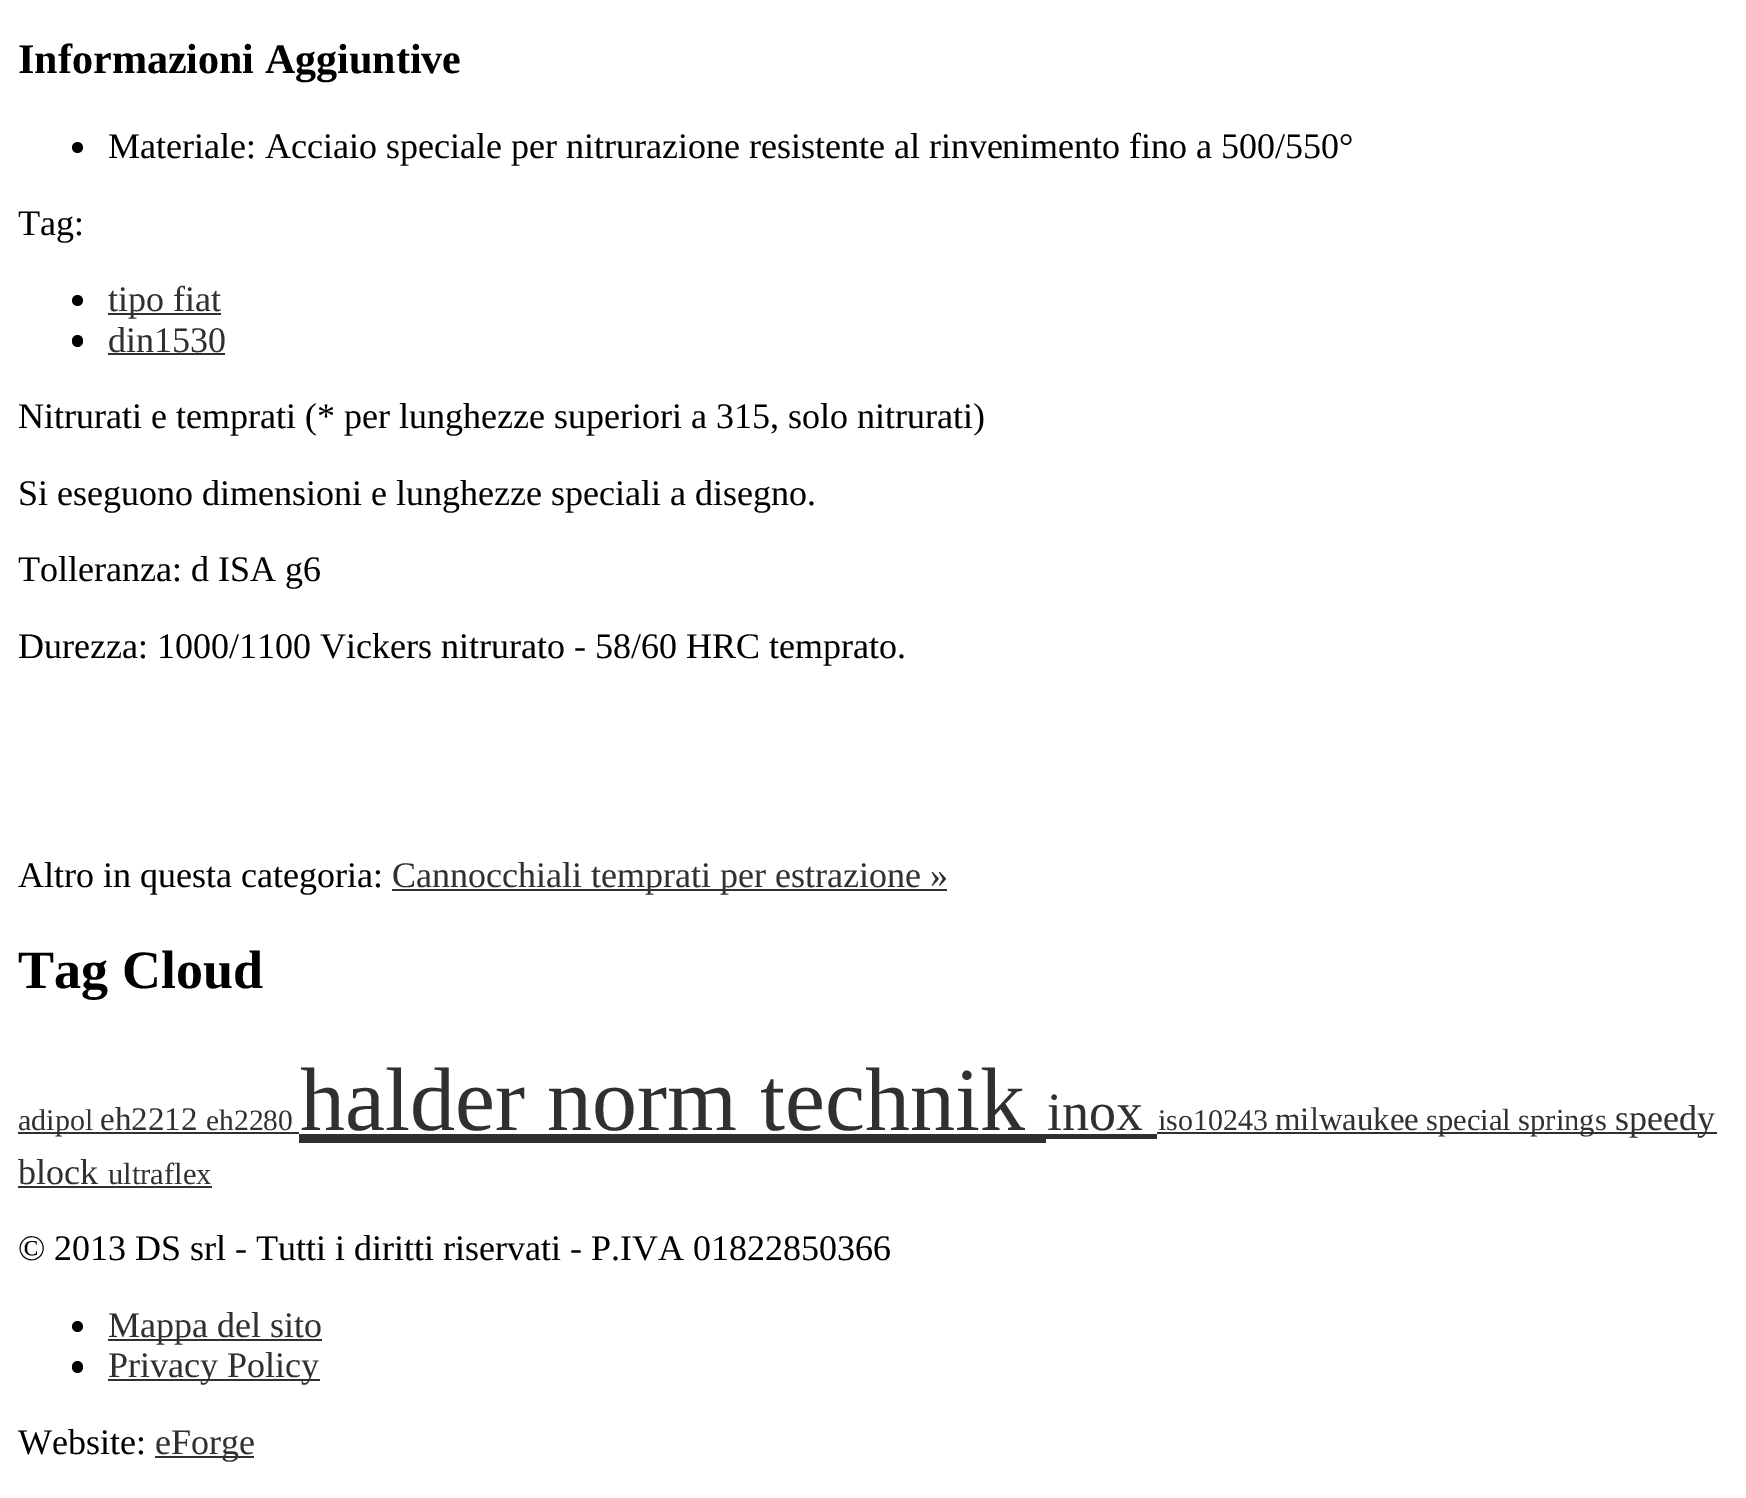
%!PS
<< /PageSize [1746 1498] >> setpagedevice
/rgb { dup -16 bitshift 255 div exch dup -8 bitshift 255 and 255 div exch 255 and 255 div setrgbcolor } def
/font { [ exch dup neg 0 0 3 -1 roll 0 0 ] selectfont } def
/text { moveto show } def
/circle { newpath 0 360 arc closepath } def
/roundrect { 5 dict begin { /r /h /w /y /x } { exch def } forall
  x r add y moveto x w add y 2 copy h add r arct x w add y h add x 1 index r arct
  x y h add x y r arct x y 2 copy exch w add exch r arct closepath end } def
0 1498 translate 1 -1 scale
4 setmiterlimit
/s1 { /LiberationSerif-Bold 42.1 font 16#000000 rgb } def
/s2 { /LiberationSerif-Regular 36 font 16#000000 rgb } def
/s3 { /LiberationSerif-Regular 36 font 16#303033 rgb } def
/s4 { /LiberationSerif-Bold 54 font 16#000000 rgb } def
/s5 { /LiberationSerif-Regular 30 font 16#303033 rgb } def
/s6 { /LiberationSerif-Regular 33 font 16#303033 rgb } def
/s7 { /LiberationSerif-Regular 29.5 font 16#303033 rgb } def
/s8 { /LiberationSerif-Regular 90 font 16#303033 rgb } def
/s9 { /LiberationSerif-Regular 54 font 16#303033 rgb } def
/s10 { /LiberationSerif-Regular 32.75 font 16#303033 rgb } def
/s11 { /LiberationSerif-Regular 30.5 font 16#303033 rgb } def
16#FFFFFF rgb
0 0 1746 1498 rectfill
s1
(Informazioni Aggiuntive) 18 73 text
77.5 147.5 5.5 circle fill
s2
(Materiale: Acciaio speciale per nitrurazione resistente al rinvenimento fino a 500/550°) 108 158 text
(Tag:) 18 235 text
77.5 300.5 5.5 circle fill
16#303033 rgb
108 313 113 2 rectfill
(tipo fiat) 108 311 text
16#000000 rgb
72 335 11 12 5.5 roundrect fill
s3
(din1530) 108 352 text
108 353 117 2 rectfill
s2
(Nitrurati e temprati \(* per lunghezze superiori a 315, solo nitrurati\)) 18 428 text
(Si eseguono dimensioni e lunghezze speciali a disegno.) 18 505 text
(Tolleranza: d ISA g6) 18 581 text
(Durezza: 1000/1100 Vickers nitrurato - 58/60 HRC temprato.) 18 658 text
(Altro in questa categoria:) 18 887 text
16#303033 rgb
392 889 555 2 rectfill
(Cannocchiali temprati per estrazione ») 392 887 text
s4
(Tag Cloud) 18 988 text
16#303033 rgb
18 1132 281 2 rectfill
s5
(adipol) 18 1130 text
s6
(eh2212) 100 1130 text
s7
(eh2280) 206 1130 text
s8
(halder norm technik) 300 1130 text
299 1134 747 9 rectfill
s9
(inox) 1047 1130 text
1046 1134 111 5 rectfill
s5
(iso10243) 1158 1130 text
1157 1132 560 2 rectfill
s10
(milwaukee) 1275 1130 text
s11
(special springs) 1426 1130 text
s3
(speedy) 1615 1130 text
(block) 18 1184 text
18 1186 194 2 rectfill
s11
(ultraflex) 108 1184 text
s2
(© 2013 DS srl - Tutti i diritti riservati - P.IVA 01822850366) 18 1260 text
77.5 1326.5 5.5 circle fill
16#303033 rgb
108 1339 214 2 rectfill
(Mappa del sito) 108 1337 text
16#000000 rgb
72 1361 11 12 5.5 roundrect fill
16#303033 rgb
108 1379 212 2 rectfill
(Privacy Policy) 108 1377 text
s2
(Website:) 18 1454 text
16#303033 rgb
155 1456 99 2 rectfill
(eForge) 155 1454 text
showpage
